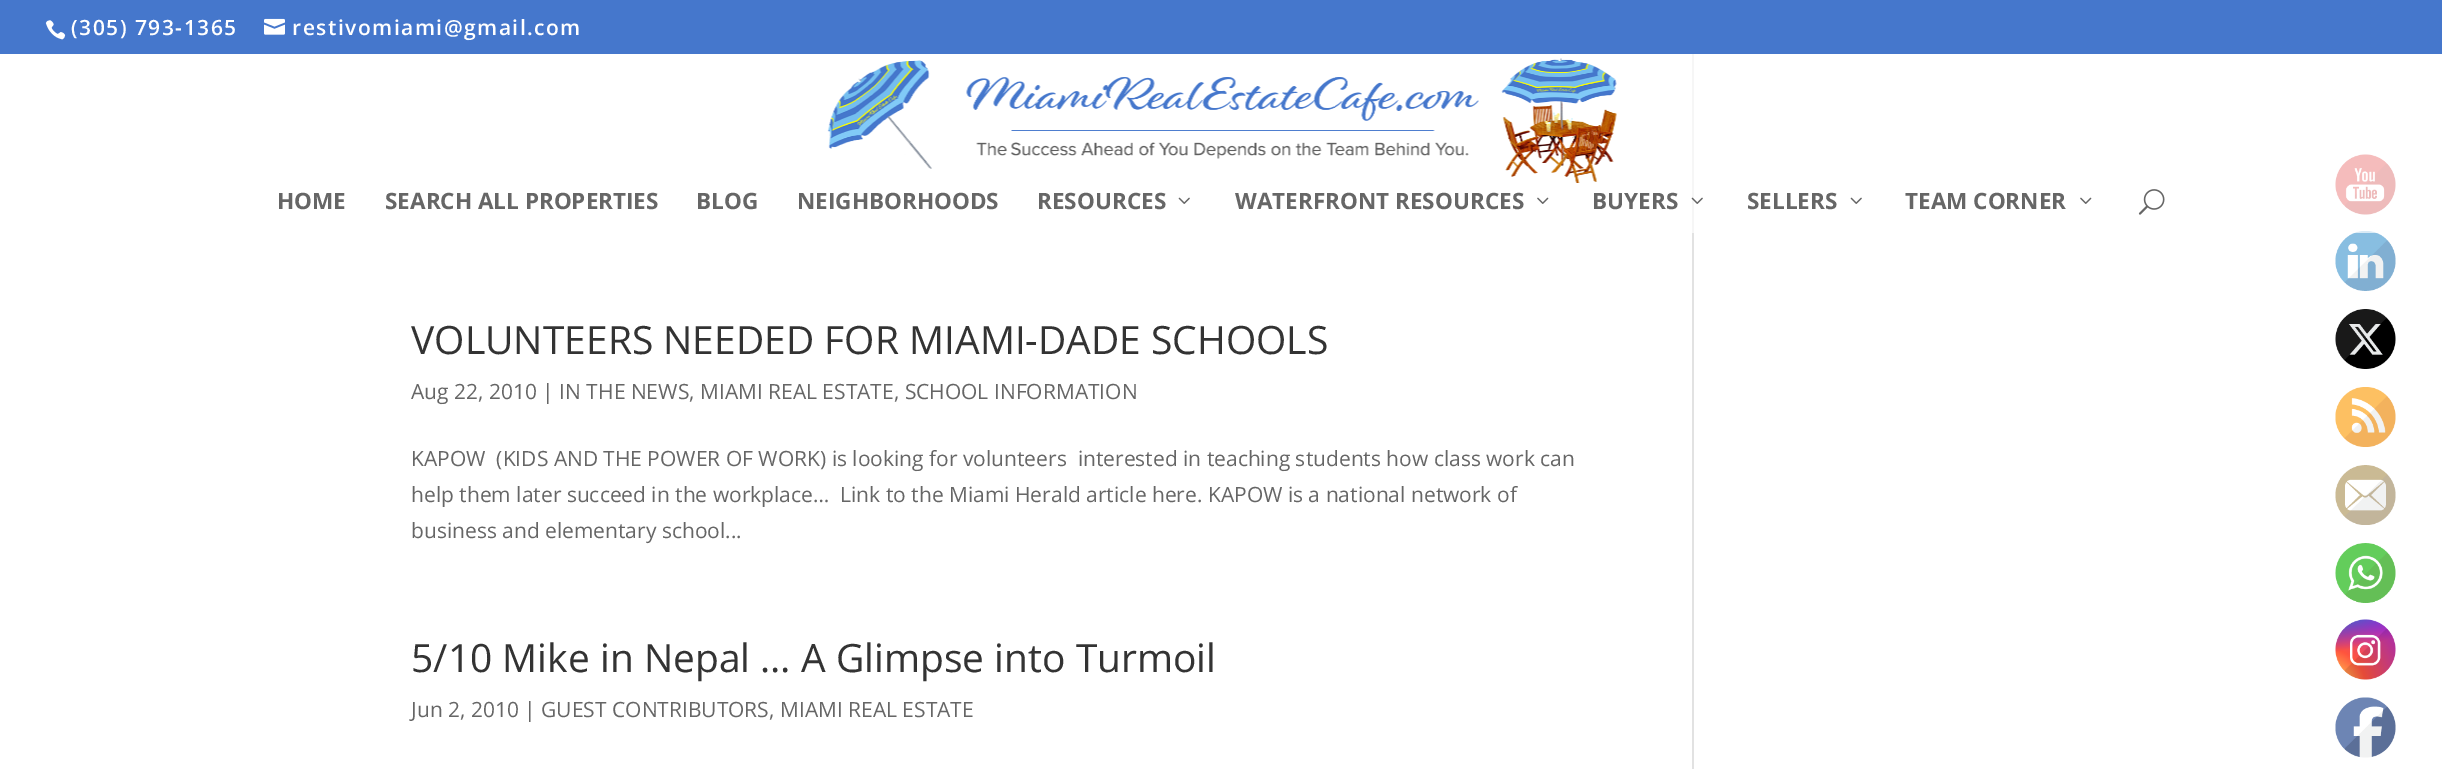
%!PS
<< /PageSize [2442 769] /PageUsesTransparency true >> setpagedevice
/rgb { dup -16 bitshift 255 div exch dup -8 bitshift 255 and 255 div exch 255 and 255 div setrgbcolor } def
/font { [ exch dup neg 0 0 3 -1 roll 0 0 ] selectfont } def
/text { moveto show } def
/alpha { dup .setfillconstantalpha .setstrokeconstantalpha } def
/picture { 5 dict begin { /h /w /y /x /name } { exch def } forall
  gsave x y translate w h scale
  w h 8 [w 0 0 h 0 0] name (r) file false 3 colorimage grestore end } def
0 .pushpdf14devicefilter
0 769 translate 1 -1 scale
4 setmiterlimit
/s1 { /OpenSans-Bold 22.5 font 16#666666 rgb } def
/s2 { /OpenSans-Regular 39 font 16#333333 rgb } def
/s3 { /OpenSans-Regular 21 font 16#666666 rgb } def
16#FFFFFF rgb
0 0 2442 769 rectfill
16#4577CC rgb
0 0 2442 54 rectfill
(pic1.raw) 45 20 21 20 picture
/OpenSans-SemiBold 21 font
16#FFFFFF rgb
71 35 moveto 1.5 0 (\(305\) 793-1365) ashow
(pic2.raw) 264 18 21 17 picture
292 35 moveto 1.5 0 (restivomiami@gmail.com) ashow
16#E2E2E2 rgb
1692 54 2 715 rectfill
(pic8.raw) 2335 154 61 61 picture
(pic9.raw) 2335 231 61 60 picture
0.68 alpha
16#FFFFFF rgb
1692 54 704 179 rectfill
1 alpha
(pic3.raw) 827 58 790 125 picture
s1
(HOME) 277 209 text
(SEARCH ALL PROPERTIES) 385 209 text
(BLOG) 696 209 text
(NEIGHBORHOODS) 797 209 text
(RESOURCES) 1037 209 text
(pic4.raw) 1178 197 12 7 picture
(WATERFRONT RESOURCES) 1235 209 text
(pic5.raw) 1537 197 12 7 picture
(BUYERS) 1592 209 text
(pic6.raw) 1691 197 12 7 picture
(SELLERS) 1747 209 text
(pic4.raw) 1850 197 12 7 picture
(TEAM CORNER) 1905 209 text
(pic5.raw) 2080 197 12 7 picture
(pic7.raw) 2138 189 27 26 picture
s2
(VOLUNTEERS NEEDED FOR MIAMI-DADE SCHOOLS) 411 354 text
s3
(Aug 22, 2010 | IN THE NEWS, MIAMI REAL ESTATE, SCHOOL INFORMATION) 411 399 text
(KAPOW  \(KIDS AND THE POWER OF WORK\) is looking for volunteers  interested in teaching students how class work can) 411 466 text
(help them later succeed in the workplace…  Link to the Miami Herald article here. KAPOW is a national network of) 411 502 text
(business and elementary school...) 411 538 text
s2
(5/10 Mike in Nepal … A Glimpse into Turmoil) 411 672 text
s3
(Jun 2, 2010 | GUEST CONTRIBUTORS, MIAMI REAL ESTATE) 411 717 text
(pic10.raw) 2335 309 61 60 picture
(pic11.raw) 2335 387 61 60 picture
(pic12.raw) 2335 465 61 60 picture
(pic13.raw) 2335 543 61 60 picture
(pic14.raw) 2335 619 61 61 picture
(pic15.raw) 2335 697 61 61 picture
.poppdf14devicefilter showpage
